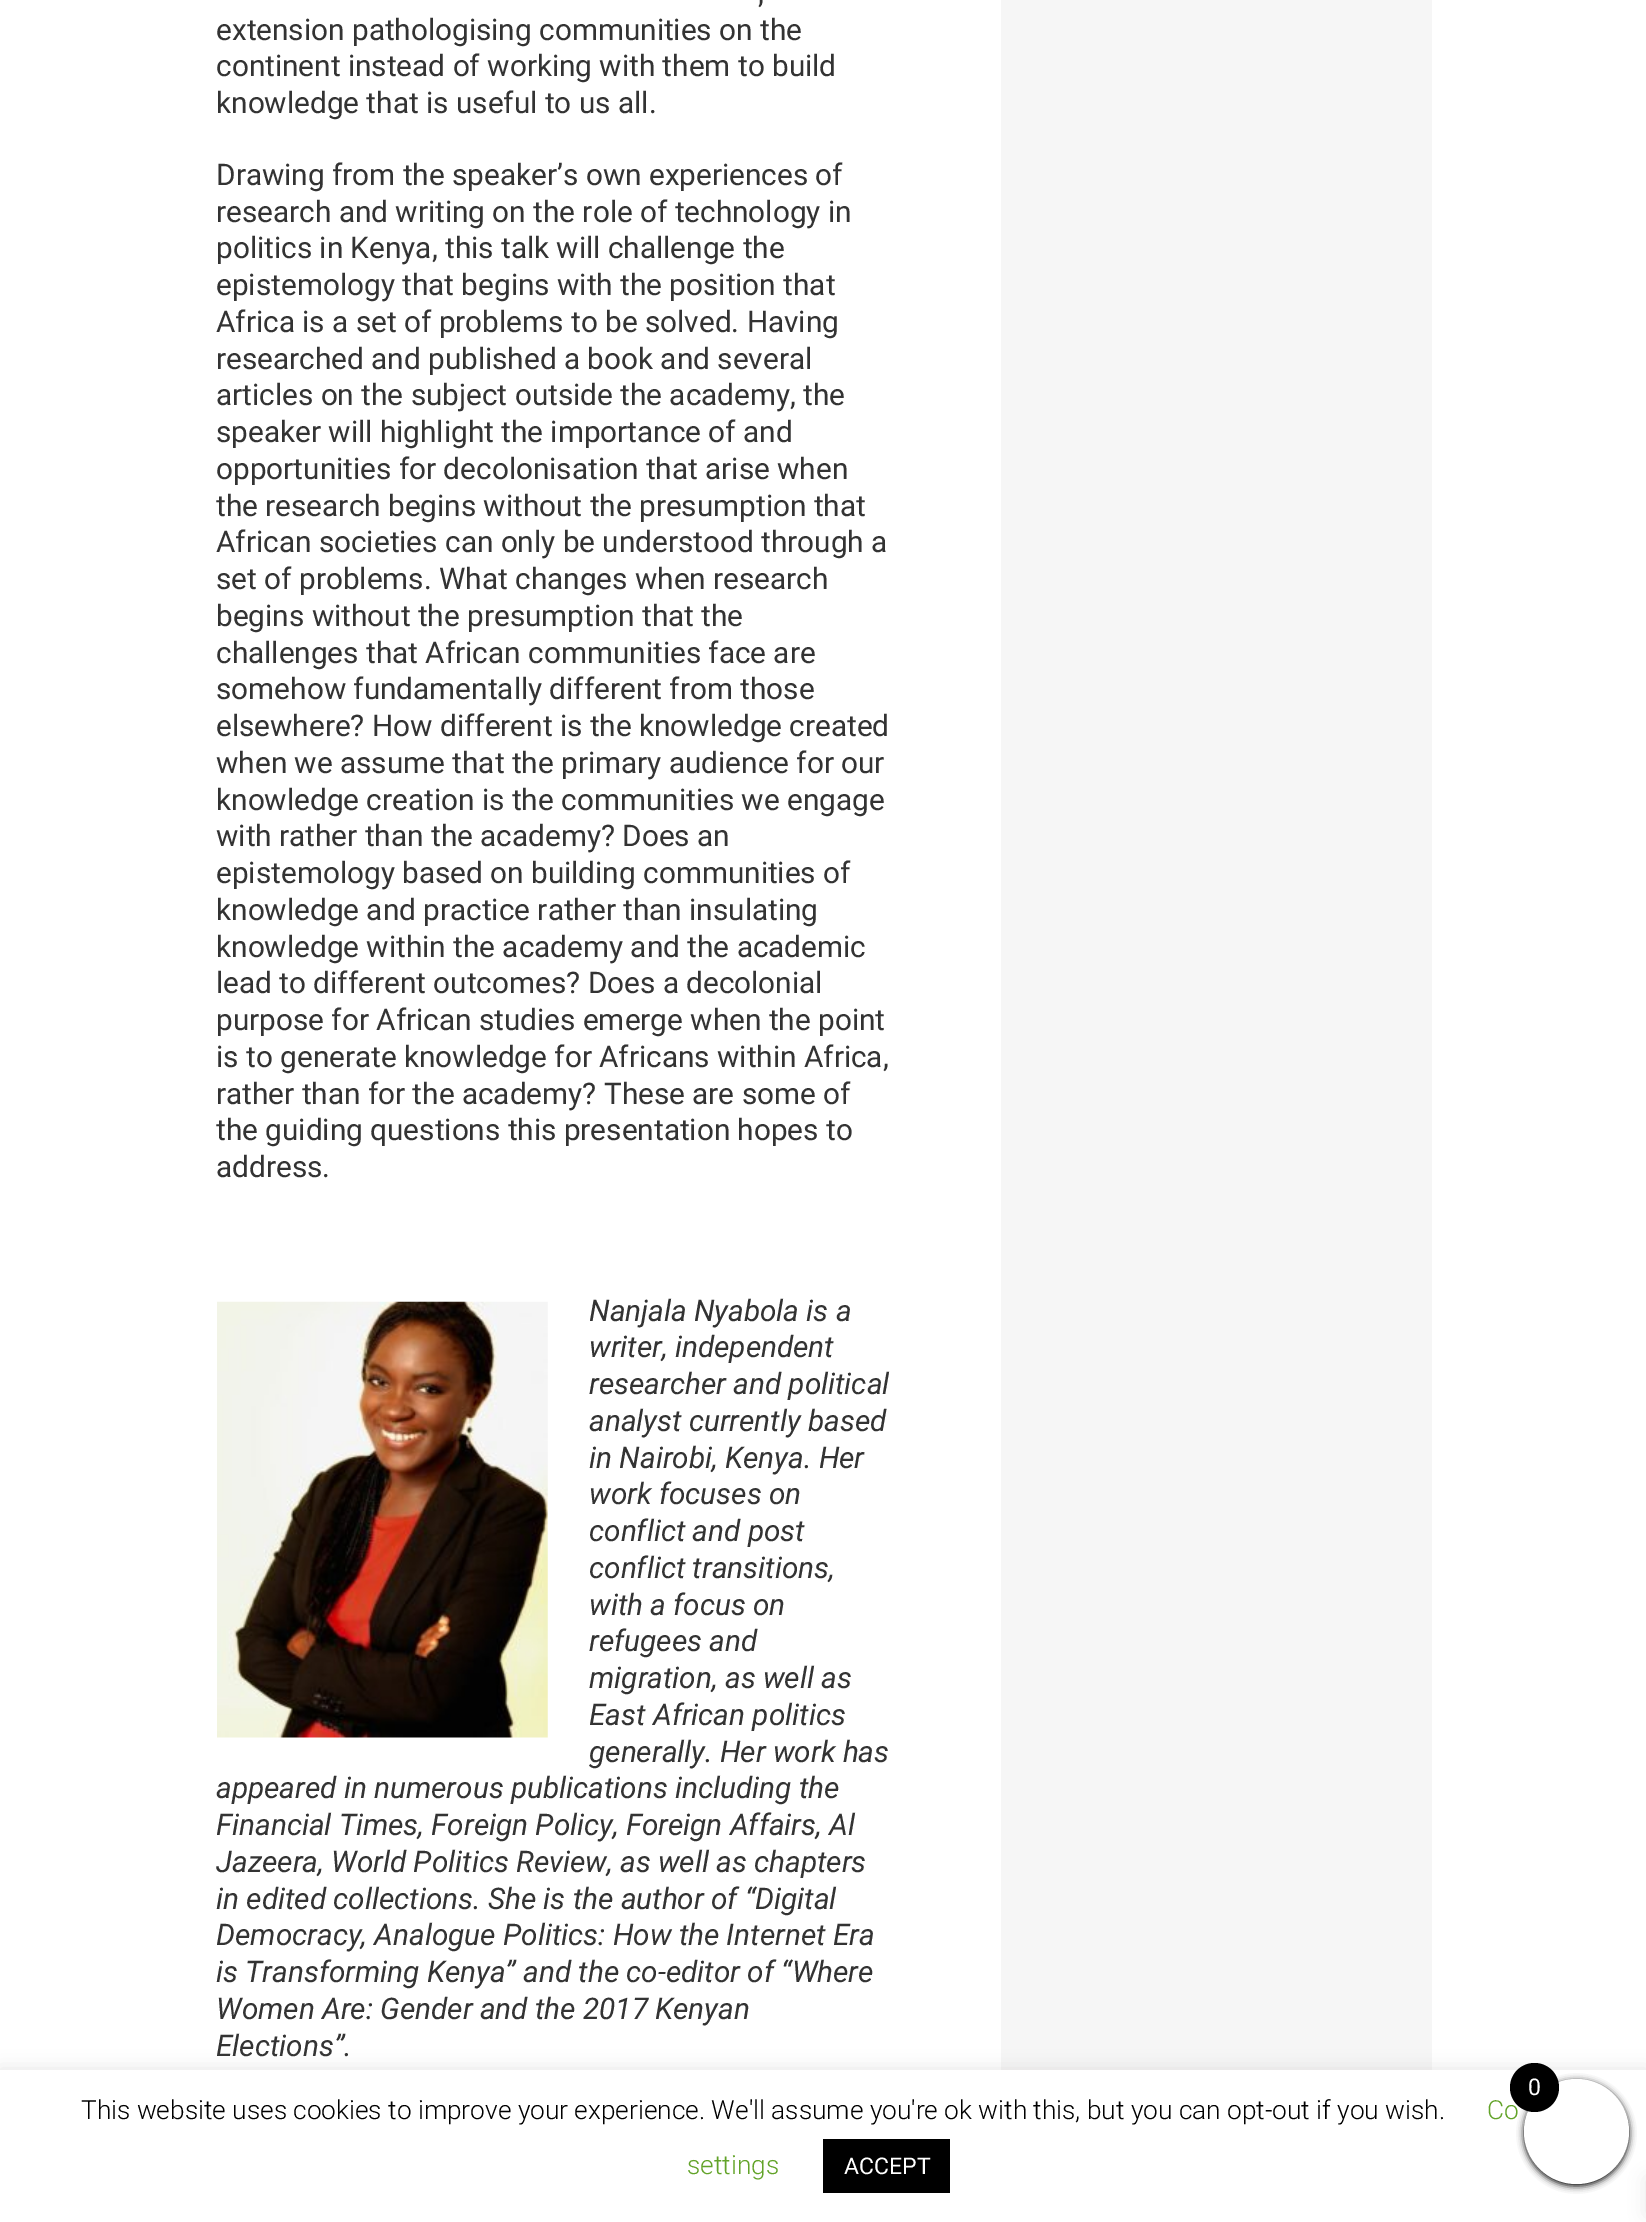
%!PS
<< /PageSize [1646 2222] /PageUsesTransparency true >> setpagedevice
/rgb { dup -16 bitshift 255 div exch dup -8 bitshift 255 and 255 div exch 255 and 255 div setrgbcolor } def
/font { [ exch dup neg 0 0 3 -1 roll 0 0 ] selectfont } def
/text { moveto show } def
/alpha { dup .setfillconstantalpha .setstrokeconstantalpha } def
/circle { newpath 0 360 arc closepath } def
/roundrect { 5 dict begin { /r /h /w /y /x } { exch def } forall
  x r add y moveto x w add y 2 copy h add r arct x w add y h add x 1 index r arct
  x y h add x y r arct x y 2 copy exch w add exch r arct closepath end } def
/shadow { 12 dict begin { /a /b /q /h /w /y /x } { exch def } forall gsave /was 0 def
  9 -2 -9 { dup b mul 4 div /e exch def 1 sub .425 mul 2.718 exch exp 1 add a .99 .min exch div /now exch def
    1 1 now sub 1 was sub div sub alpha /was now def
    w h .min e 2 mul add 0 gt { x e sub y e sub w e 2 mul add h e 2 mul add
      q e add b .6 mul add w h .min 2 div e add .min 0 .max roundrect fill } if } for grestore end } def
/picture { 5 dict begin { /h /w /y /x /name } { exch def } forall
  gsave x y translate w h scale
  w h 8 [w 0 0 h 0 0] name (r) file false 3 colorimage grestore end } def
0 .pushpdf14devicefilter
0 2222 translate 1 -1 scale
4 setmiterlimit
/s1 { /Roboto-Regular 29.75 font 16#333333 rgb } def
/s2 { /Roboto-Italic 29.75 font 16#333333 rgb } def
/s3 { /Roboto-Light 26.25 font 16#62A329 rgb } def
/s4 { /Roboto-Regular 23 font 16#FFFFFF rgb } def
/s5 { /Roboto-Light 26.25 font 16#000000 rgb } def
16#FFFFFF rgb
0 0 1646 2222 rectfill
s1
(,) 758 3 text
(extension pathologising communities on the) 216 40 text
(continent instead of working with them to build) 216 76 text
(knowledge that is useful to us all.) 216 113 text
(Drawing from the speaker’s own experiences of) 216 185 text
(research and writing on the role of technology in) 216 222 text
(politics in Kenya, this talk will challenge the) 216 258 text
(epistemology that begins with the position that) 216 295 text
(Africa is a set of problems to be solved. Having) 216 332 text
(researched and published a book and several) 216 369 text
(articles on the subject outside the academy, the) 216 405 text
(speaker will highlight the importance of and) 216 442 text
(opportunities for decolonisation that arise when) 216 479 text
(the research begins without the presumption that) 216 516 text
(African societies can only be understood through a) 216 552 text
(set of problems. What changes when research) 216 589 text
(begins without the presumption that the) 216 626 text
(challenges that African communities face are) 216 663 text
(somehow fundamentally different from those) 216 699 text
(elsewhere? How different is the knowledge created) 216 736 text
(when we assume that the primary audience for our) 216 773 text
(knowledge creation is the communities we engage) 216 810 text
(with rather than the academy? Does an) 216 846 text
(epistemology based on building communities of) 216 883 text
(knowledge and practice rather than insulating) 216 920 text
(knowledge within the academy and the academic) 216 957 text
(lead to different outcomes? Does a decolonial) 216 993 text
(purpose for African studies emerge when the point) 216 1030 text
(is to generate knowledge for Africans within Africa,) 216 1067 text
(rather than for the academy? These are some of) 216 1104 text
(the guiding questions this presentation hopes to) 216 1140 text
(address.) 216 1177 text
(pic1.raw) 217 1301 331 437 picture
s2
(Nanjala Nyabola is a) 589 1321 text
(writer, independent) 589 1357 text
(researcher and political) 589 1394 text
(analyst currently based) 589 1431 text
(in Nairobi, Kenya. Her) 589 1468 text
(work focuses on) 589 1504 text
(conflict and post) 589 1541 text
(conflict transitions,) 589 1578 text
(with a focus on) 589 1615 text
(refugees and) 589 1651 text
(migration, as well as) 589 1688 text
(East African politics) 589 1725 text
(generally. Her work has) 589 1762 text
(appeared in numerous publications including the) 216 1798 text
(Financial Times, Foreign Policy, Foreign Affairs, Al) 216 1835 text
(Jazeera, World Politics Review, as well as chapters) 216 1872 text
(in edited collections. She is the author of “Digital) 216 1909 text
(Democracy, Analogue Politics: How the Internet Era) 216 1945 text
(is Transforming Kenya” and the co-editor of “Where) 216 1982 text
(Women Are: Gender and the 2017 Kenyan) 216 2019 text
(Elections”.) 216 2056 text
16#F6F6F6 rgb
1001 0 431 2070 rectfill
16#ACABAB rgb
0 2069 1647 152 0 9 0.3 shadow
16#FFFFFF rgb
0 2070 1646 152 rectfill
16#000000 rgb
1524 2081 105 105 52.5 3.5 1 shadow
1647 2179 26 35 0 9 0.1 shadow
16#FFFFFF rgb
1576.5 2131.5 52.5 circle fill
s3
(Co) 1487 2119 text
16#000000 rgb
1534.5 2087.5 24.5 circle fill
s4
(0) 1528 2095 text
s5
(This website uses cookies to improve your experience. We'll assume you're ok with this, but you can opt-out if you wish.) 81 2119 text
s3
(settings) 687 2174 text
16#000000 rgb
823 2139 127 54 rectfill
s4
(ACCEPT) 844 2174 text
.poppdf14devicefilter showpage
